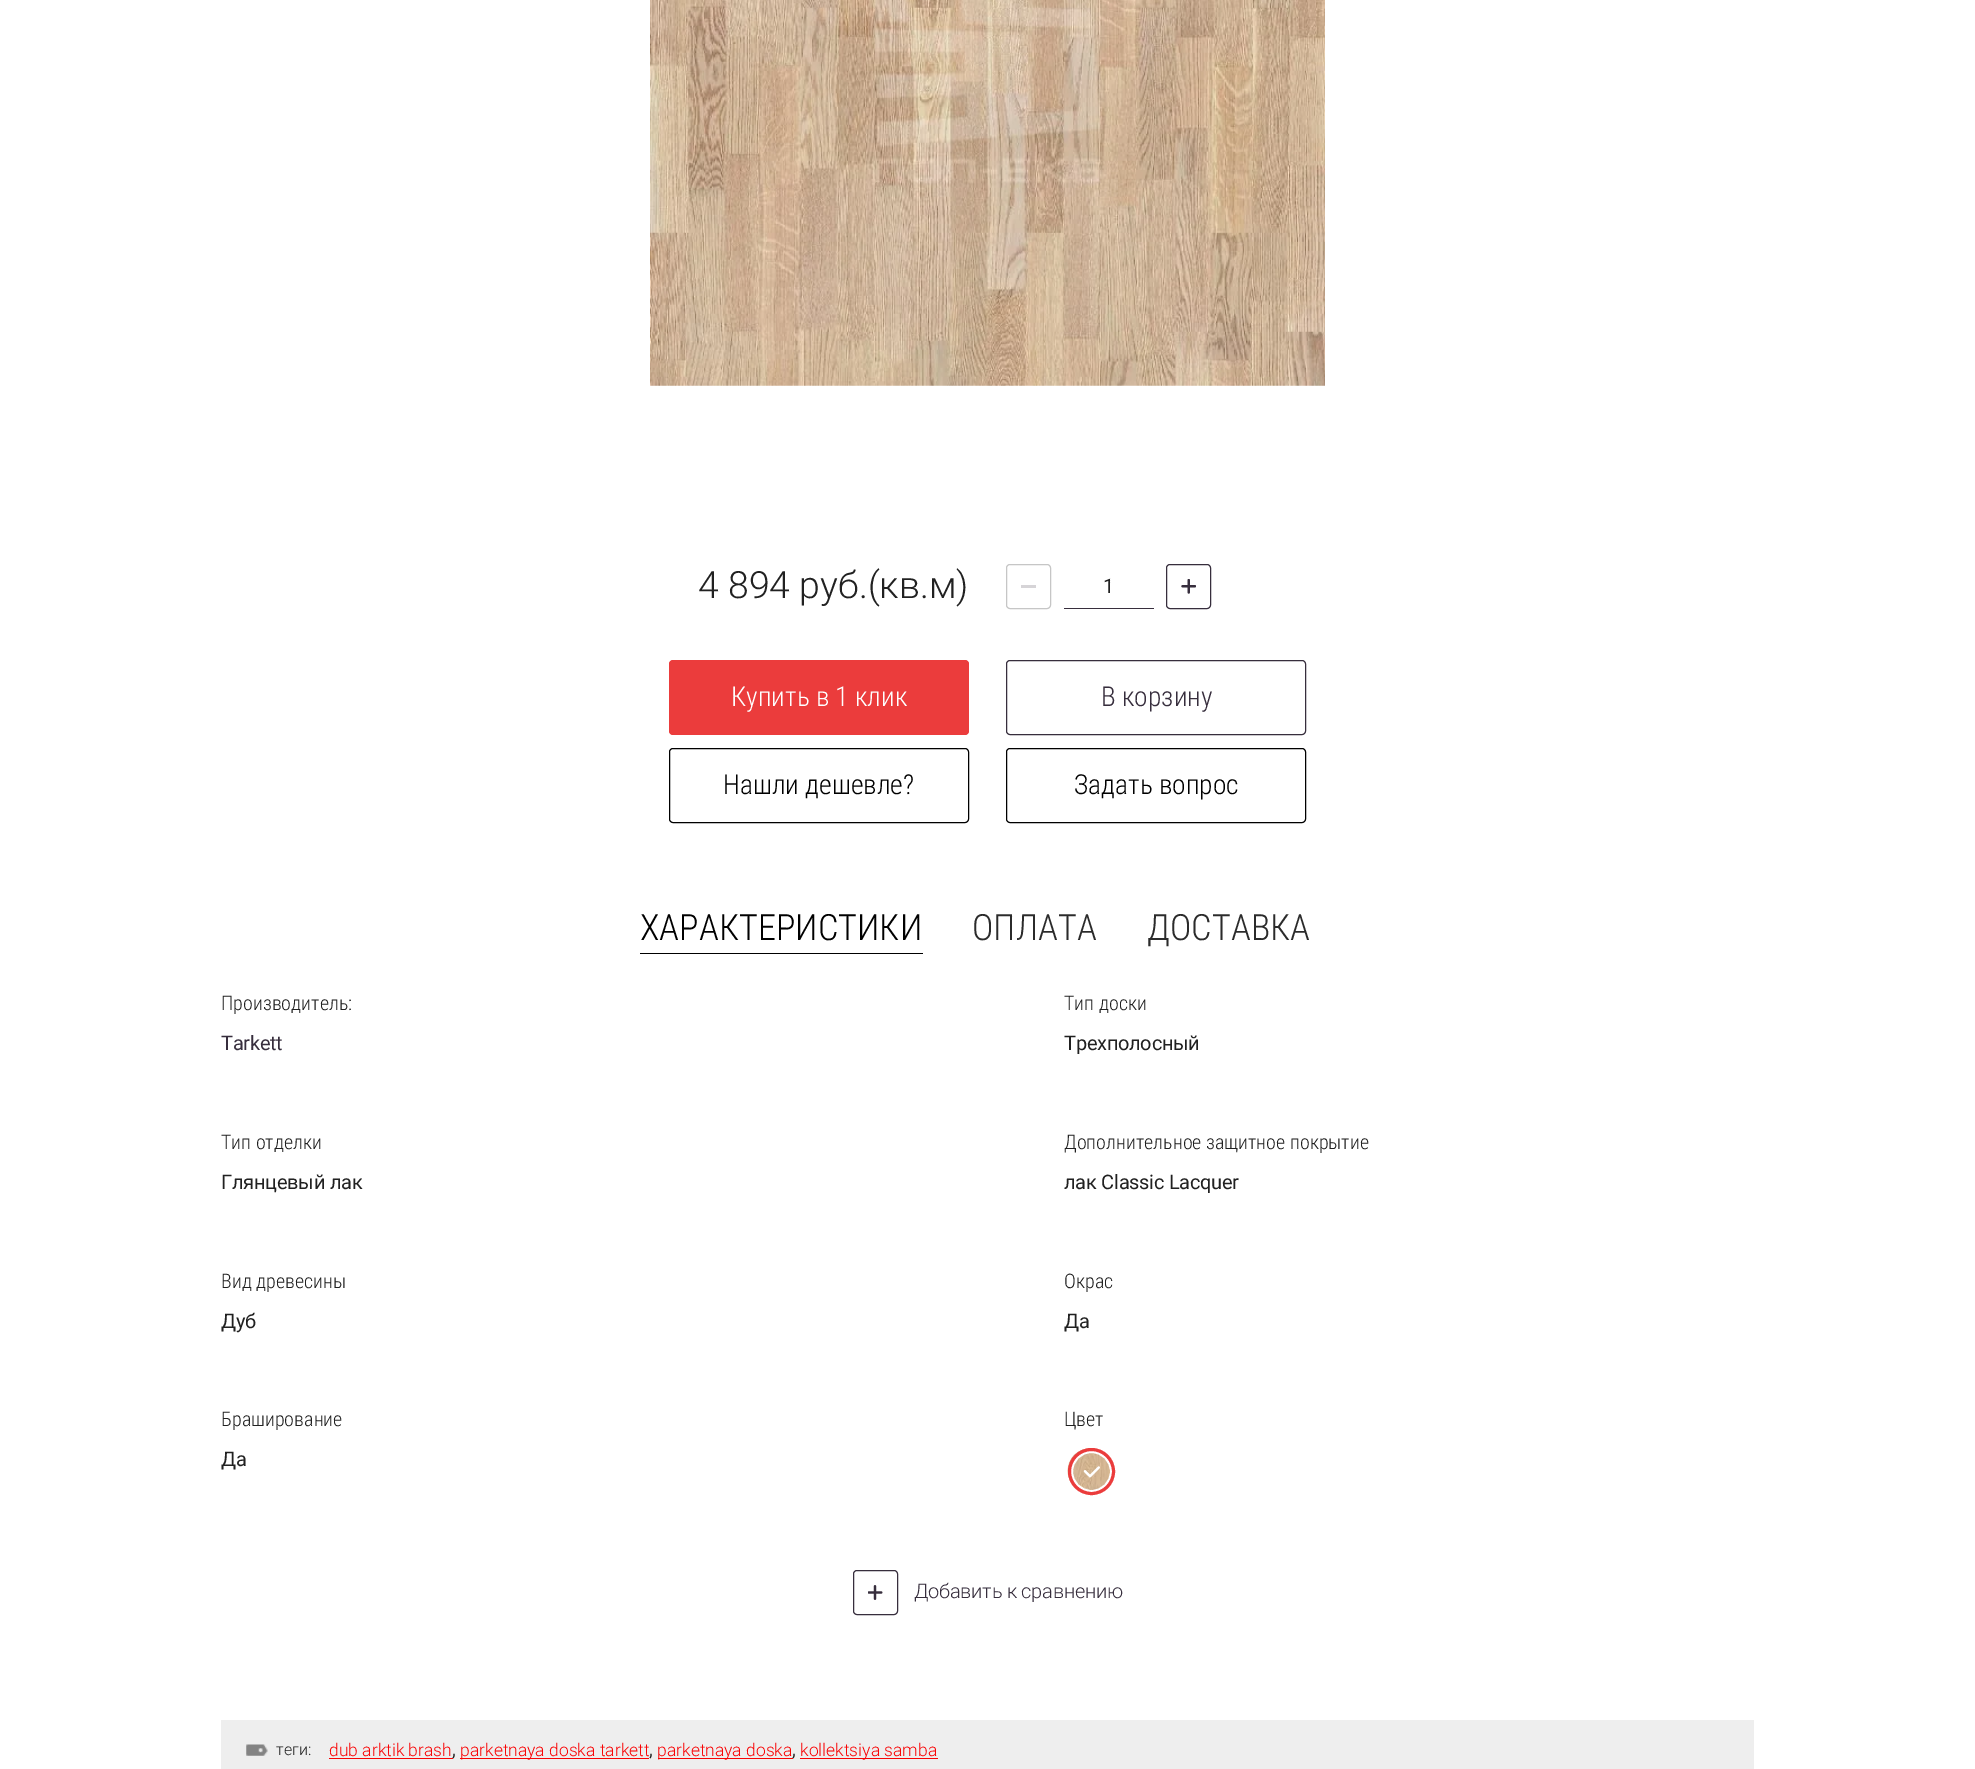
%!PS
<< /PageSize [1975 1769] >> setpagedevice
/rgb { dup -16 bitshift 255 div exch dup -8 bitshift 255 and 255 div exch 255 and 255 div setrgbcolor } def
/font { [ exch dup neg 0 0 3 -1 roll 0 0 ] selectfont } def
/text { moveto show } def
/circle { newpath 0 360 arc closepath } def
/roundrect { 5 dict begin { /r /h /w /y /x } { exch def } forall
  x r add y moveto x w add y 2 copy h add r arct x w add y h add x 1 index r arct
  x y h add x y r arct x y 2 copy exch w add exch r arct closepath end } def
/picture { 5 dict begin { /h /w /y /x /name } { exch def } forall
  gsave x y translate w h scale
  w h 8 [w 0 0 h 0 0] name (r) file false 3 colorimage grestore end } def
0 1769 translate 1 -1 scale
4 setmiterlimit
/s1 { /Roboto-Light 37.5 font 16#212121 rgb } def
/s2 { /roboto-Regular 20 font 16#212121 rgb } def
/s3 { /RobotoCondensed-Light 27.5 font 16#FFFFFF rgb } def
/s4 { /RobotoCondensed-Light 27.5 font 16#000000 rgb } def
/s5 { /RobotoCondensed-Light 27.5 font 16#372E3D rgb } def
/s6 { /RobotoCondensed-Light 36.25 font 16#000000 rgb } def
/s7 { /RobotoCondensed-Light 36.25 font 16#2B2B2B rgb } def
/s8 { /RobotoCondensed-Light 20 font 16#212121 rgb } def
/s9 { /Roboto-Light 16 font 16#212121 rgb } def
/s10 { /Roboto-Light 17.5 font 16#F90304 rgb } def
/s11 { /Roboto-Bold 17.5 font 16#212121 rgb } def
16#FFFFFF rgb
0 0 1975 1769 rectfill
(pic1.raw) 650 0 675 386 picture
s1
(4 894 руб.\(кв.м\)) 698 598 text
16#C6C6C6 rgb
1006.5 564.5 44 44 3.5 roundrect stroke
16#D6D4D7 rgb
1021 585 15 3 rectfill
16#372E3D rgb
1064 608 90 1 rectfill
s2
(1) 1103 593 text
16#372E3D rgb
1166.5 564.5 44 44 3.5 roundrect stroke
(pic2.raw) 1181 579 15 15 picture
16#EB3C3C rgb
669 660 300 75 4 roundrect fill
s3
(Купить в 1 клик) 731 706 text
16#000000 rgb
669.5 748.5 299 74 3.5 roundrect stroke
(Нашли дешевле?) 723 794 text
16#372E3D rgb
1006.5 660.5 299 74 3.5 roundrect stroke
(В корзину) 1101 706 text
16#000000 rgb
1006.5 748.5 299 74 3.5 roundrect stroke
(Задать вопрос) 1074 794 text
640 953 283 1 rectfill
s6
(ХАРАКТЕРИСТИКИ) 640 940 text
s7
(ОПЛАТА) 972 940 text
(ДОСТАВКА) 1147 940 text
s8
(Производитель:) 221 1010 text
/roboto-Regular 20 font
16#372E3D rgb
221 1050 moveto -0.25 0 (Tarkett) ashow
s8
(Тип доски) 1064 1010 text
/roboto-Regular 20 font
1064 1050 moveto -0.25 0 (Трехполосный) ashow
s8
(Тип отделки) 221 1149 text
/roboto-Regular 20 font
221 1189 moveto -0.25 0 (Глянцевый лак) ashow
s8
(Дополнительное защитное покрытие) 1064 1149 text
/roboto-Regular 20 font
1064 1189 moveto -0.25 0 (лак Сlassiс Lacquer) ashow
s8
(Вид древесины) 221 1288 text
/roboto-Regular 20 font
221 1328 moveto -0.25 0 (Дуб) ashow
s8
(Окрас) 1064 1288 text
/roboto-Regular 20 font
1064 1328 moveto -0.25 0 (Да) ashow
s8
(Браширование) 221 1426 text
/roboto-Regular 20 font
221 1466 moveto -0.25 0 (Да) ashow
s8
(Цвет) 1064 1426 text
(pic3.raw) 1067 1448 44 43 picture
(pic4.raw) 1083 1466 17 12 picture
16#FFFFFF rgb
3 setlinewidth
1091.5 1471.5 20 circle stroke
16#EB3C3C rgb
1091.5 1471.5 22 circle stroke
(pic5.raw) 868 1585 15 15 picture
16#372E3D rgb
1 setlinewidth
853.5 1570.5 44 44 3.5 roundrect stroke
/Roboto-Light 20 font
914 1598 moveto -0.25 0 (Добавить к сравнению) ashow
16#EEEEEE rgb
221 1720 1533 49 rectfill
(pic6.raw) 246 1744 22 12 picture
s9
(теги:) 276 1755 text
s10
(dub arktik brash) 329 1756 text
329 1758 124 1 rectfill
s11
(,) 452 1756 text
16#F90304 rgb
460 1758 189 1 rectfill
s10
(parketnaya doska tarkett) 460 1756 text
s11
(,) 649 1756 text
16#F90304 rgb
658 1758 135 1 rectfill
s10
(parketnaya doska) 657 1756 text
s11
(,) 792 1756 text
16#F90304 rgb
800 1758 138 1 rectfill
s10
(kollektsiya samba) 800 1756 text
showpage
